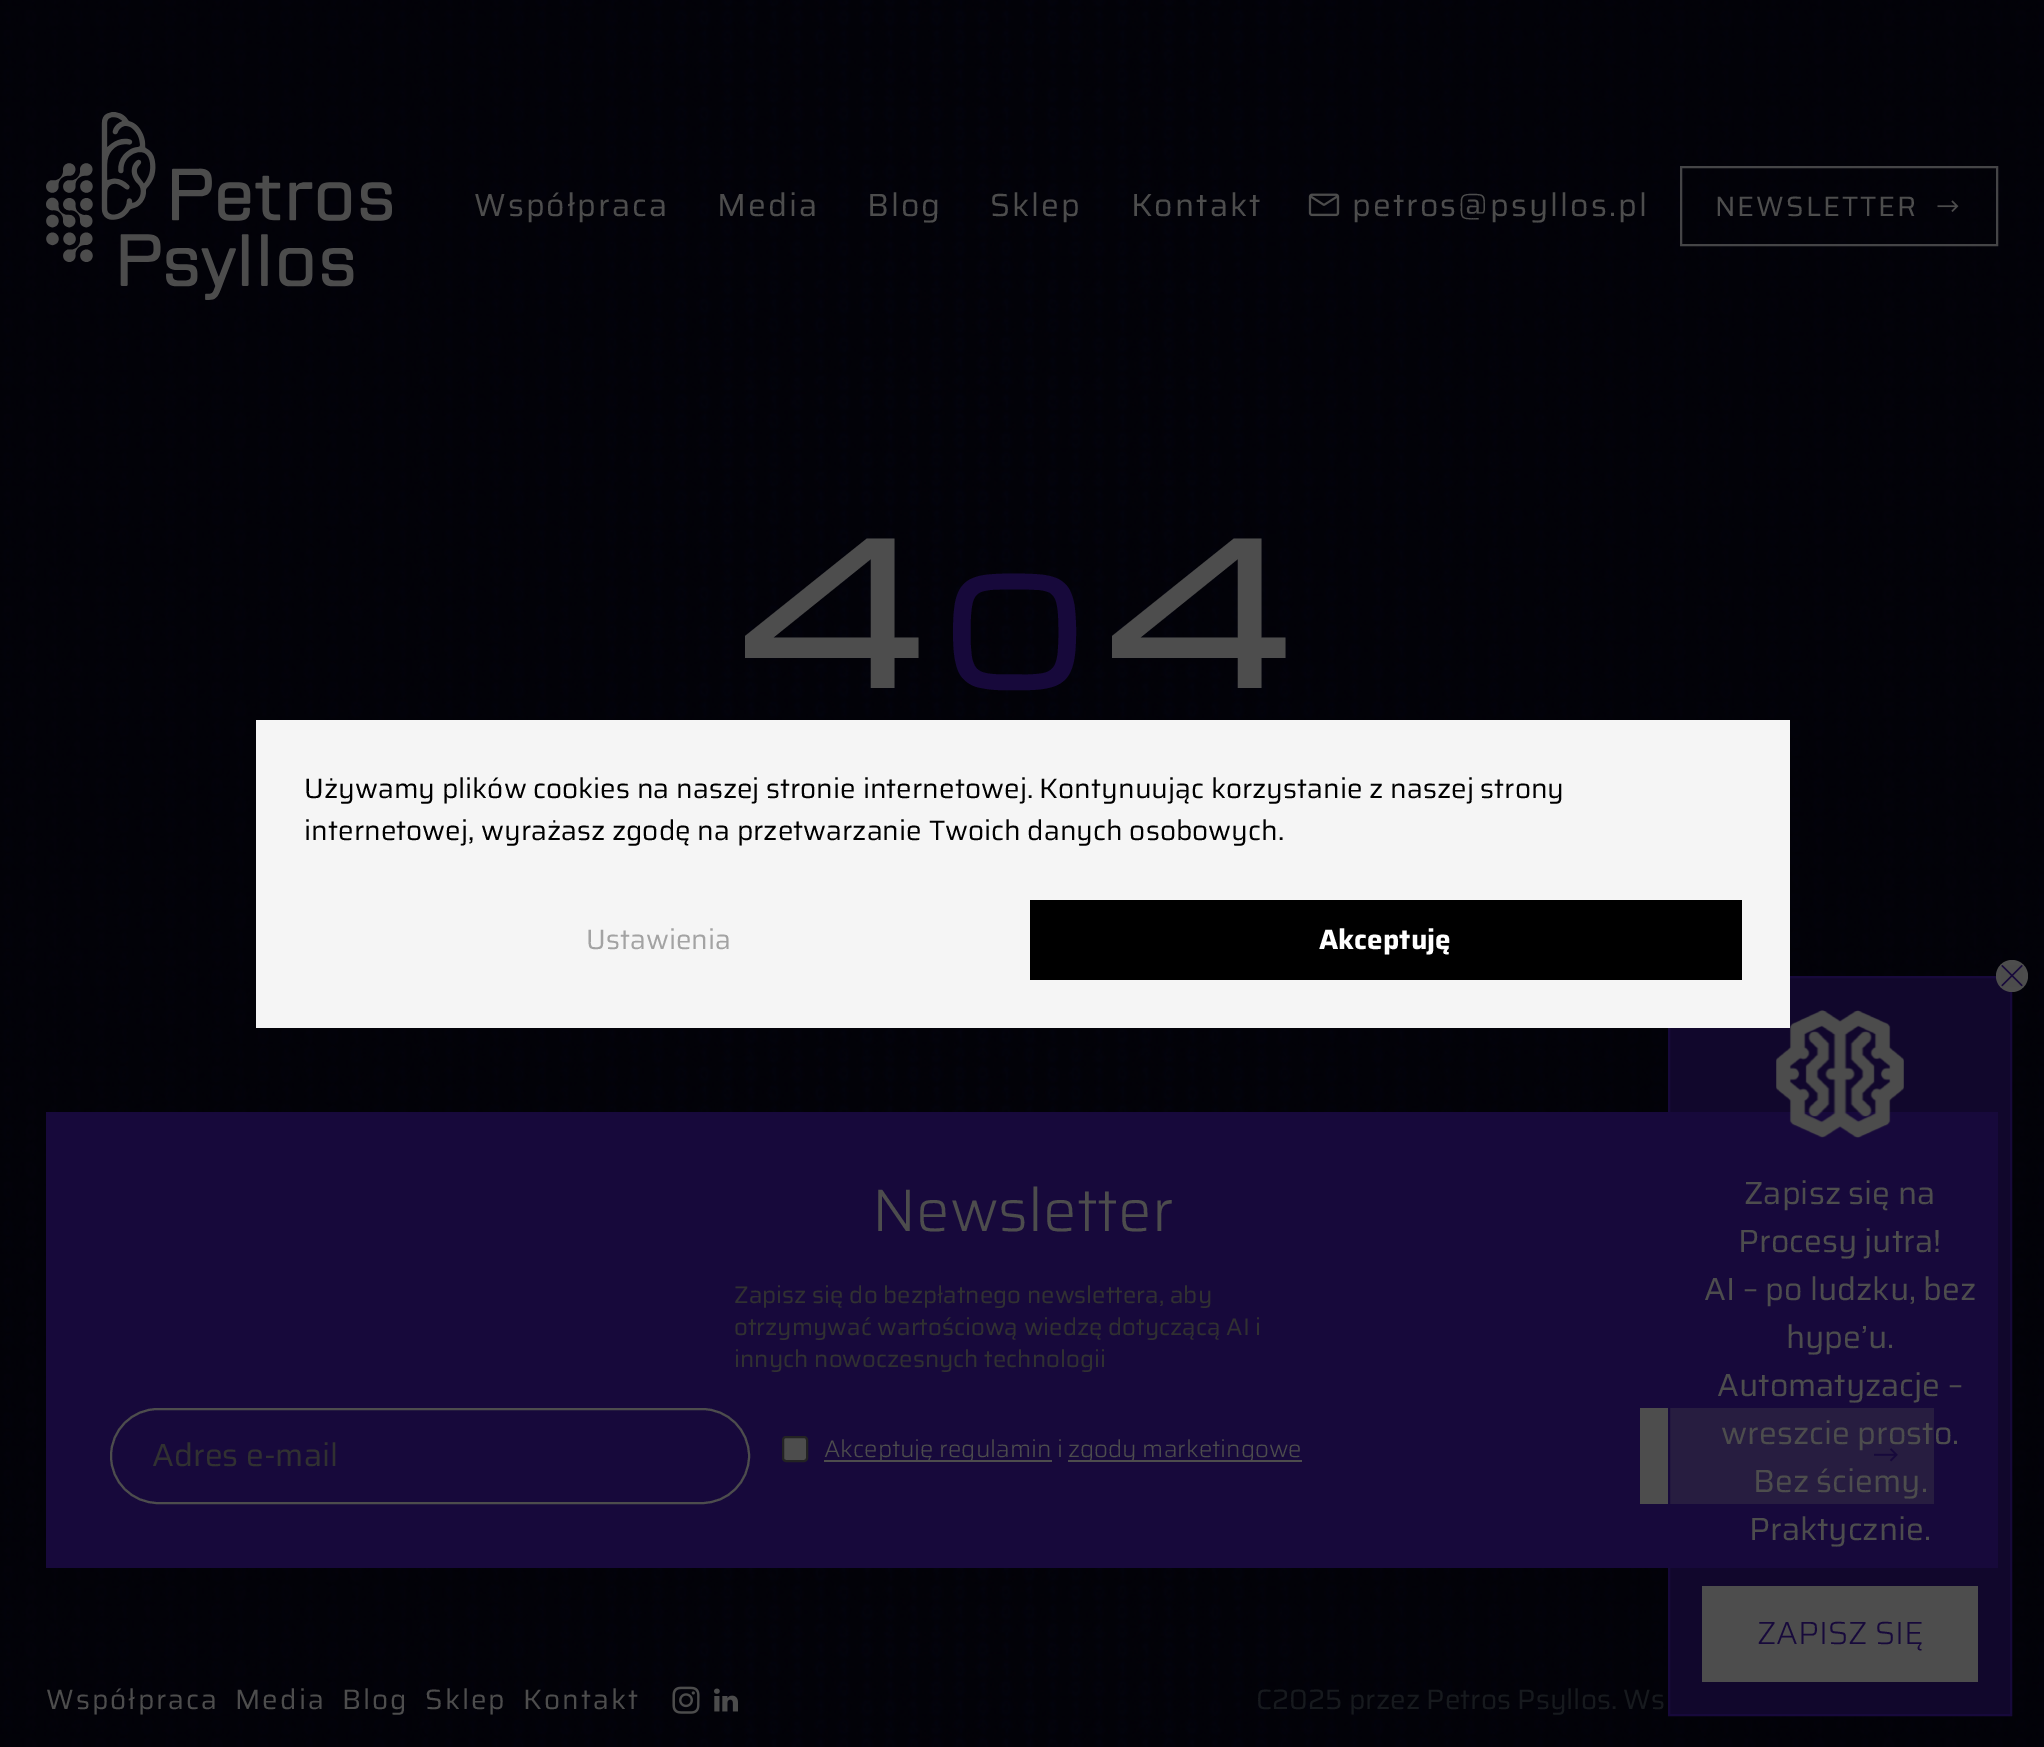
%!PS
<< /PageSize [2044 1747] /PageUsesTransparency true >> setpagedevice
/rgb { dup -16 bitshift 255 div exch dup -8 bitshift 255 and 255 div exch 255 and 255 div setrgbcolor } def
/font { [ exch dup neg 0 0 3 -1 roll 0 0 ] selectfont } def
/text { moveto show } def
/alpha { dup .setfillconstantalpha .setstrokeconstantalpha } def
/circle { newpath 0 360 arc closepath } def
/roundrect { 5 dict begin { /r /h /w /y /x } { exch def } forall
  x r add y moveto x w add y 2 copy h add r arct x w add y h add x 1 index r arct
  x y h add x y r arct x y 2 copy exch w add exch r arct closepath end } def
/picture { 5 dict begin { /h /w /y /x /name } { exch def } forall
  gsave x y translate w h scale
  w h 8 [w 0 0 h 0 0] name (r) file false 3 colorimage grestore end } def
0 .pushpdf14devicefilter
0 1747 translate 1 -1 scale
4 setmiterlimit
/s1 { /Saira-Regular 28 font 16#000000 rgb } def
/s2 { /Saira-Regular 28 font 16#A3A3A3 rgb } def
/s3 { /Saira-Bold 28 font 16#FFFFFF rgb } def
/s4 { /Saira-Light 60 font 16#4D4D4D rgb } def
/s5 { /Saira-Regular 24 font 16#313131 rgb } def
/s6 { /Saira-Regular 32 font 16#313131 rgb } def
/s7 { /Saira-Light 24 font 16#4D4D4D rgb } def
/s8 { /Saira-Regular 28 font 16#171A1E rgb } def
/s9 { /Saira-Regular 32 font 16#4D4D4D rgb } def
/s10 { /Saira-Light 32 font 16#17093B rgb } def
16#FFFFFF rgb
0 0 2044 1747 rectfill
(pic1.raw) 0 0 2044 1747 picture
(pic2.raw) 46 112 346 188 picture
/Saira-Regular 32 font
16#4D4D4D rgb
474 216 moveto 2 0 (Współpraca) ashow
717 216 moveto 2 0 (Media) ashow
867 216 moveto 2 0 (Blog) ashow
990 216 moveto 2 0 (Sklep) ashow
1131 216 moveto 2 0 (Kontakt) ashow
(pic3.raw) 1308 193 32 24 picture
1352 216 moveto 2 0 (petros@psyllos.pl) ashow
16#454547 rgb
2 setlinewidth
1681 167 316 78 rectstroke
/Saira-Regular 28 font
16#4D4D4D rgb
1715 216 moveto 2 0 (NEWSLETTER) ashow
(pic4.raw) 1937 200 22 12 picture
/Michroma-Bold 192 font
733 688 moveto 19 0 (4) ashow
/Michroma-Bold 144 font
16#17093B rgb
944 688 moveto 19 0 (0) ashow
/Michroma-Bold 192 font
16#4D4D4D rgb
1100 688 moveto 19 0 (4) ashow
16#17093B rgb
46 1112 1952 456 rectfill
16#4D4D4D rgb
1640 1408 294 96 rectfill
(pic5.raw) 1874 1448 24 14 picture
0.7 alpha
16#17093B rgb
1669 977 moveto 2011 977 lineto 2011 1715 lineto 1669 1715 lineto closepath fill
1 alpha
1669 977 moveto 2011 977 lineto 2011 1715 lineto 1669 1715 lineto closepath stroke
(pic9.raw) 1776 1010 128 128 picture
16#F5F5F5 rgb
256 720 1534 308 rectfill
s1
(Używamy plików cookies na naszej stronie internetowej. Kontynuując korzystanie z naszej strony) 304 798 text
(internetowej, wyrażasz zgodę na przetwarzanie Twoich danych osobowych.) 304 840 text
s2
(Ustawienia) 586 949 text
16#000000 rgb
1030 900 712 80 rectfill
s3
(Akceptuję) 1319 949 text
s4
(Newsletter) 872 1231 text
s5
(Zapisz się do bezpłatnego newslettera, aby) 734 1303 text
(otrzymywać wartościową wiedzę dotyczącą AI i) 734 1335 text
(innych nowoczesnych technologii) 734 1367 text
16#4D4D4D rgb
111 1409 638 94 47 roundrect stroke
s6
(Adres e-mail) 152 1466 text
16#4D4D4D rgb
783 1437 24 24 3 roundrect gsave fill grestore
16#232323 rgb
stroke
16#4D4D4D rgb
824 1460 228 2 rectfill
s7
(Akceptuję regulamin i) 824 1457 text
1068 1460 234 2 rectfill
(zgody marketingowe) 1068 1457 text
/Saira-Regular 28 font
46 1709 moveto 2 0 (Współpraca) ashow
235 1709 moveto 2 0 (Media) ashow
342 1709 moveto 2 0 (Blog) ashow
425 1709 moveto 2 0 (Sklep) ashow
523 1709 moveto 2 0 (Kontakt) ashow
(pic6.raw) 672 1686 28 28 picture
(pic7.raw) 714 1688 24 24 picture
s8
(C2025 przez Petros Psyllos. Ws) 1256 1709 text
16#4D4D4D rgb
2012 976 16 circle fill
(pic8.raw) 2001 965 22 22 picture
s9
(Zapisz się na) 1744 1204 text
(Procesy jutra!) 1738 1252 text
(AI – po ludzku, bez) 1704 1300 text
(hype’u.) 1786 1348 text
(Automatyzacje –) 1717 1396 text
(wreszcie prosto.) 1721 1444 text
(Bez ściemy.) 1753 1492 text
(Praktycznie.) 1749 1540 text
1702 1586 276 96 rectfill
s10
(ZAPISZ SIĘ) 1757 1644 text
.poppdf14devicefilter showpage
